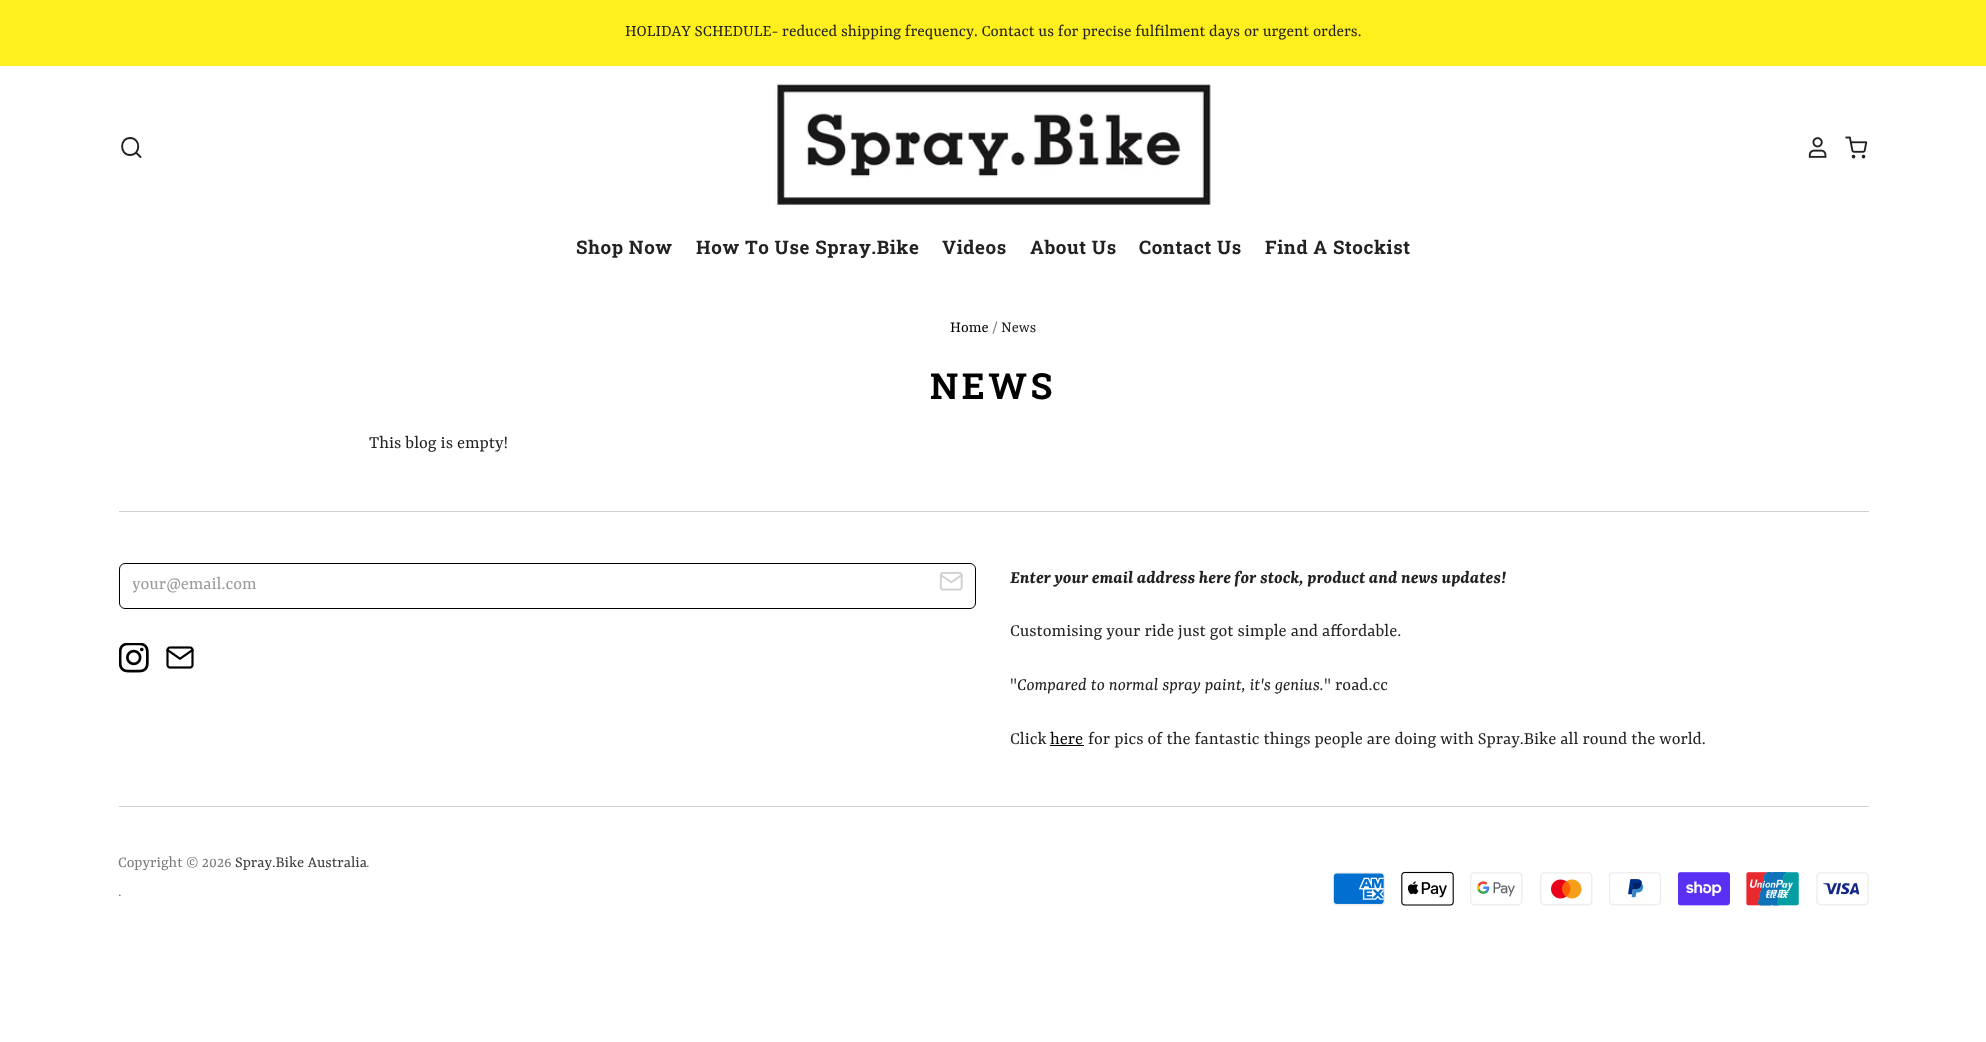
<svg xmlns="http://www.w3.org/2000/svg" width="1986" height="1042">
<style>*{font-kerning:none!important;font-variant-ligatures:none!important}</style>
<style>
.a{font:17.5px Rasa;fill:#222}
.b{font:bold 18.75px Roboto Slab;letter-spacing:0.6px;fill:#222}
.c{font:16.5px Rasa;fill:#000}
.d{font:16.5px Rasa;fill:#7a7a7a}
.e{font:16.5px Rasa;fill:#222}
.f{font:bold 36px Roboto Slab;letter-spacing:3.5px;fill:#000}
.g{font:18.75px Rasa;fill:#222}
.h{font:18.75px Rasa;fill:#999}
.i{font:italic bold 18.75px Rasa;fill:#222}
.j{font:italic 18.75px Rasa;fill:#222}
.k{font:18.75px Rasa;fill:#000}
.l{font:16.5px Rasa;fill:#383838}
</style>
<defs>
<clipPath id="clip1"><path d="M133 574h750v22H133z"/></clipPath>
</defs>
<rect width="100%" height="100%" fill="#fff"/>
<path fill="#fff01d" d="M0 0h1986v66H0z"/>
<path fill="none" stroke="#222" stroke-width="1.9" stroke-linecap="round" stroke-linejoin="round" d="M130 138c-10.5 0-10.5 17 0 17c11 0 11-17 0-17zm10.5 19l-4.5-4.5z"/>
<image href="1.png" x="775" y="83" width="436" height="122"/>
<image href="2.png" x="1808" y="137" width="19" height="21"/>
<image href="3.png" x="1845" y="136" width="23" height="23"/>
<path fill="#d0d0d0" d="M119 511h1750v1H119z"/>
<rect fill="none" stroke="#000" x="119.5" y="563.5" width="856" height="45" rx="5.5"/>
<image href="4.png" x="939" y="572" width="24" height="19"/>
<image href="5.png" x="119" y="643" width="30" height="30"/>
<image href="6.png" x="166" y="646" width="28" height="23"/>
<path fill="#000" d="M1050 745h34v1H1050z"/>
<path fill="#d0d0d0" d="M119 806h1750v1H119z"/>
<image href="7.png" x="1333" y="872" width="52" height="34"/>
<image href="8.png" x="1401" y="871" width="53" height="35"/>
<image href="9.png" x="1470" y="872" width="53" height="34"/>
<image href="10.png" x="1540" y="872" width="53" height="34"/>
<image href="11.png" x="1609" y="872" width="52" height="34"/>
<image href="12.png" x="1678" y="872" width="52" height="34"/>
<image href="13.png" x="1746" y="872" width="53" height="34"/>
<image href="14.png" x="1816" y="872" width="53" height="34"/>
<text class="a" x="625" y="36">HOLIDAY SCHEDULE- reduced shipping frequency. Contact us for precise fulfilment</text>
<text class="a" x="1209" y="36">days or urgent orders.</text>
<text class="b" x="576" y="254">Shop Now</text>
<text class="b" x="696" y="254">How To Use Spray.Bike</text>
<text class="b" x="942" y="254">Videos</text>
<text class="b" x="1030" y="254">About Us</text>
<text class="b" x="1139" y="254">Contact Us</text>
<text class="b" x="1265" y="254">Find A Stockist</text>
<text class="c" x="950" y="332">Home</text>
<text class="d" x="992" y="332">/</text>
<text class="e" x="1001" y="332">News</text>
<text class="f" x="930" y="399">NEWS</text>
<text class="g" x="369" y="448">This blog is empty!</text>
<g clip-path="url(#clip1)">
<text class="h" x="132" y="589">your@email.com</text>
</g>
<text class="i" x="1010" y="583">Enter your email address here for</text>
<text class="i" x="1260" y="583">stock, product and news updates!</text>
<text class="g" x="1010" y="636">Customising your ride just got simple and affordable.</text>
<text class="g" x="1010" y="690">"</text>
<text class="j" x="1017" y="690">Compared to normal spray paint, it's genius.</text>
<text class="g" x="1324" y="690">" road.cc</text>
<text class="g" x="1010" y="744">Click</text>
<text class="k" x="1050" y="744">here</text>
<text class="g" x="1088" y="744">for pics of the fantastic things people are doing with Spray.Bike all round the world.</text>
<text class="d" x="118" y="867">Copyright © 2026</text>
<text class="l" x="235" y="867">Spray.Bike Australia</text>
<text class="d" x="366" y="867">.</text>
<text class="d" x="118" y="896">.</text>
</svg>
